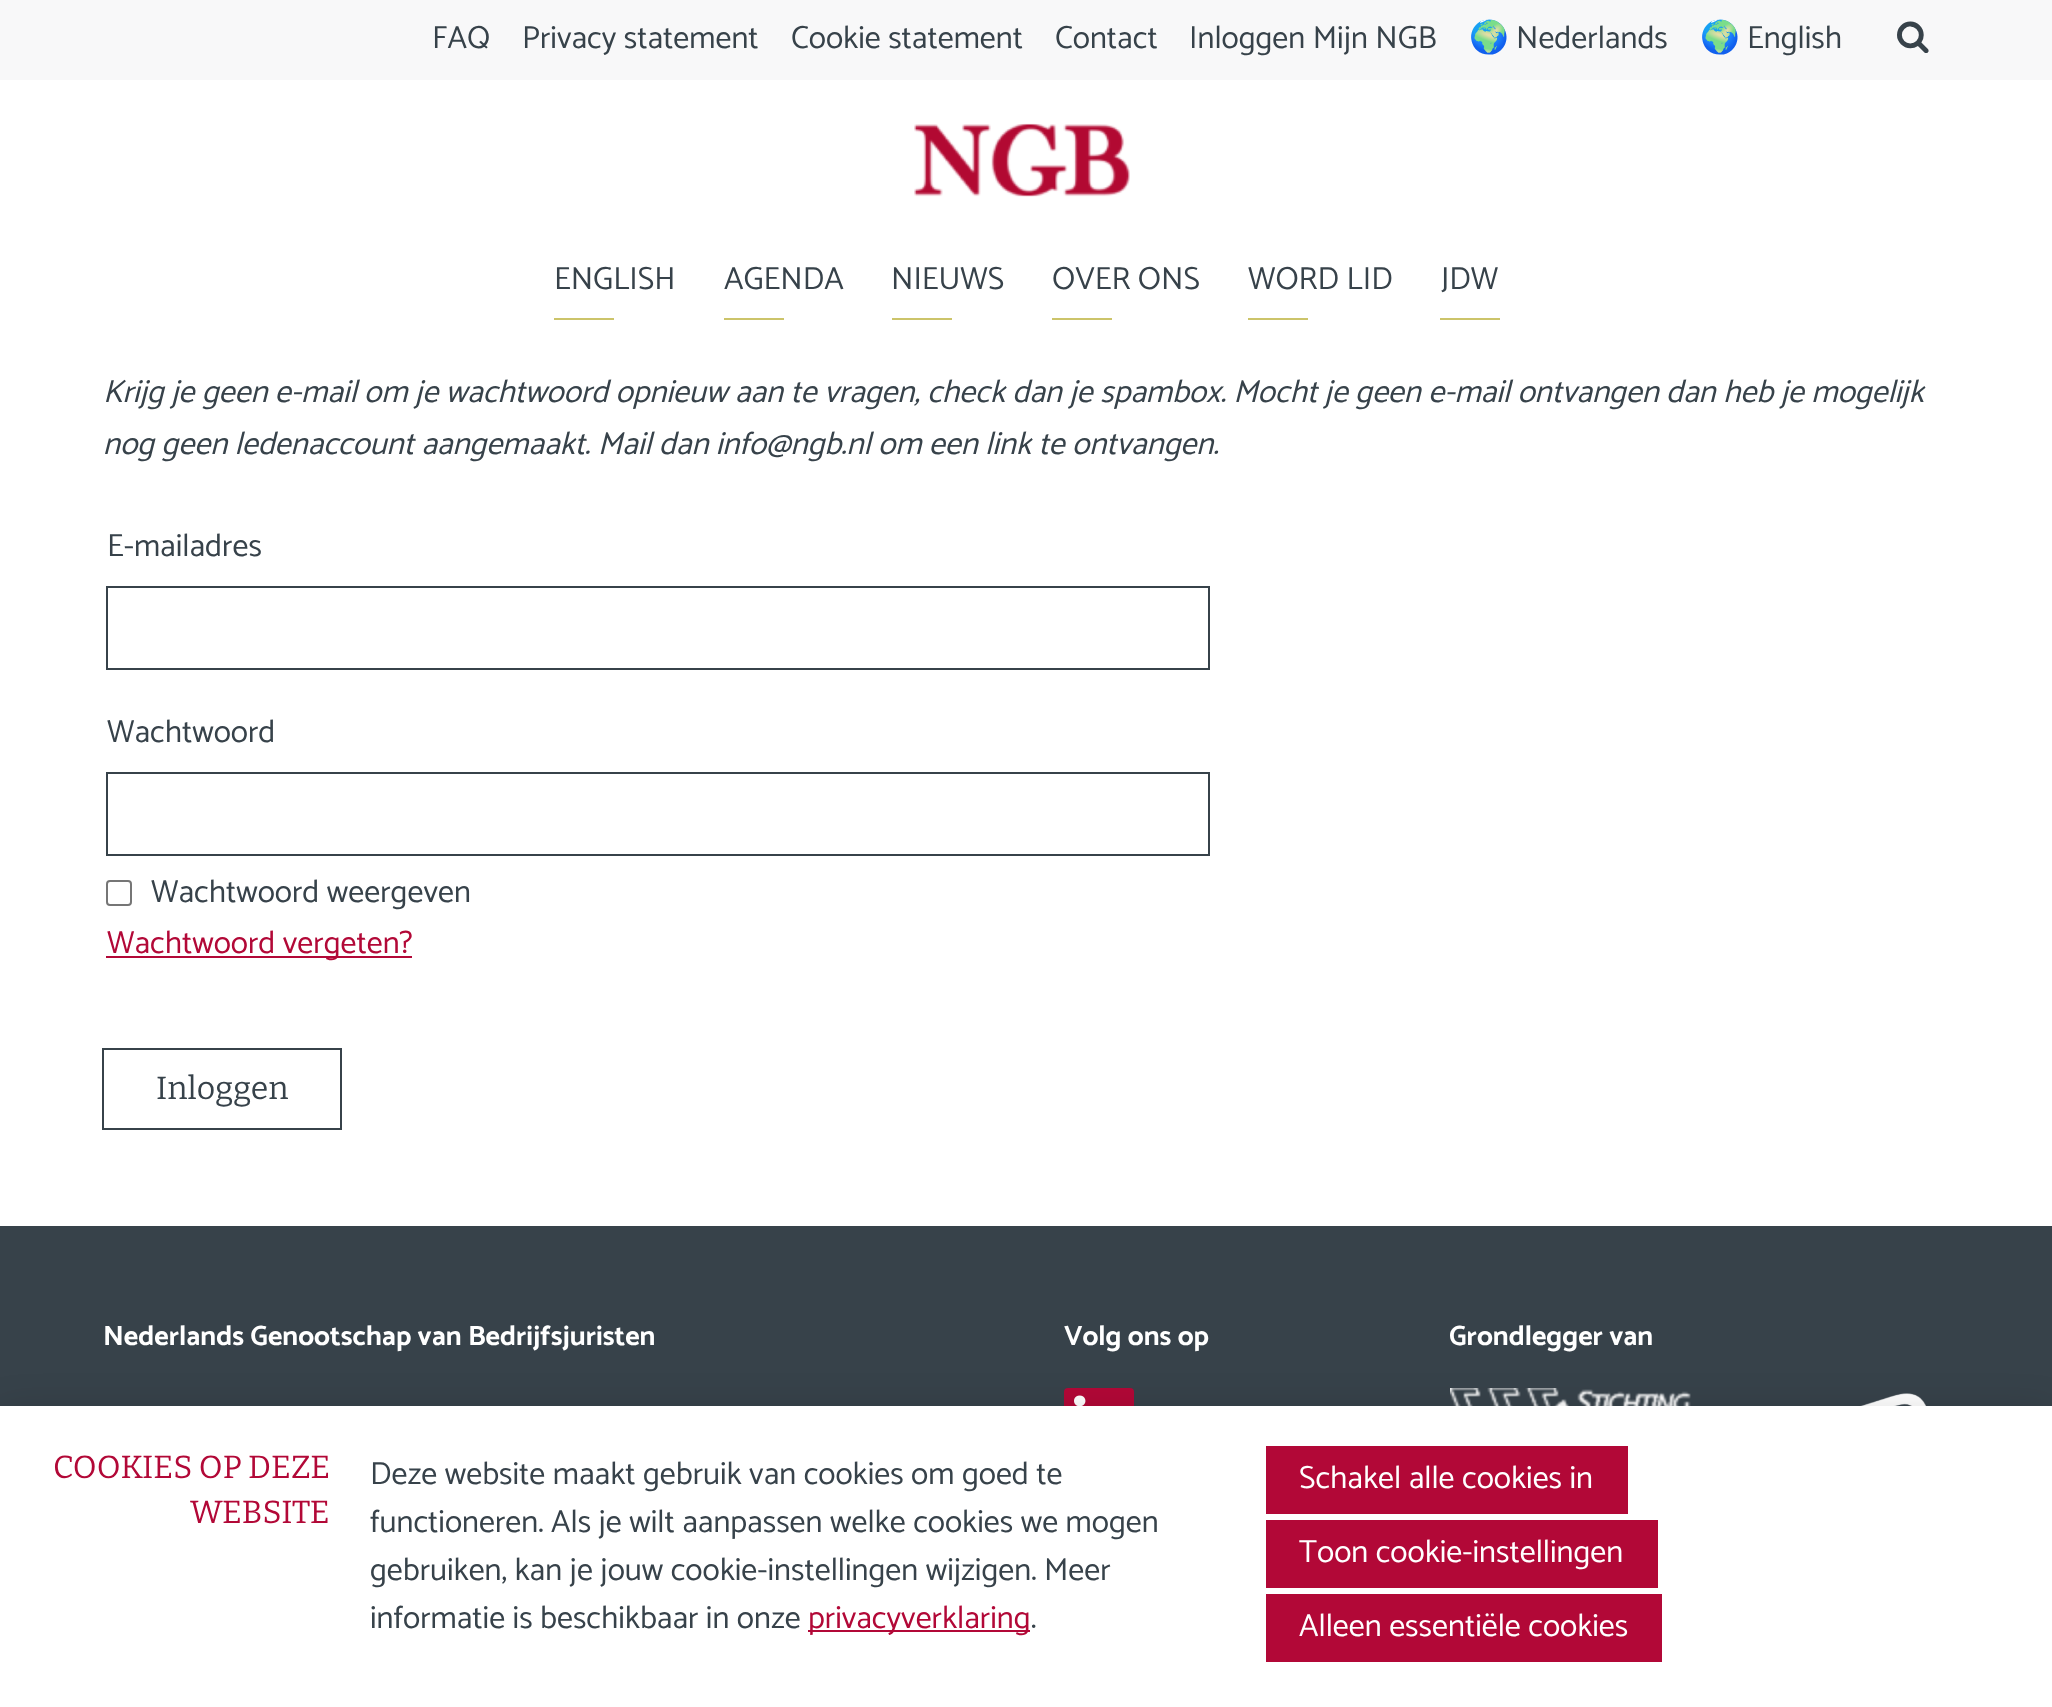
<svg xmlns="http://www.w3.org/2000/svg" width="2052" height="1707">
<style>
.a{font:32px Catamaran;fill:#37424a}
.b{font:32px Noto Color Emoji;fill:#37424a}
.c{font:34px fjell;fill:#37424a}
.d{font:italic 32px Catamaran;fill:#37424a}
.e{font:32px Catamaran;fill:#b20837}
.f{font:100 32px Bitter;fill:#37424a}
.g{font:bold 28px Catamaran;fill:#fff}
.h{font:100 32px Bitter;fill:#b20837}
.i{font:32px Catamaran;fill:#fff}
</style>
<rect width="100%" height="100%" fill="#fff"/>
<path fill="#f8f8f9" d="M0 0h2052v80H0z"/>
<image href="1.png" x="914" y="123" width="216" height="74"/>
<path fill="#ccc46a" d="M554 318h60v2H554z"/>
<path fill="#ccc46a" d="M724 318h60v2H724z"/>
<path fill="#ccc46a" d="M892 318h60v2H892z"/>
<path fill="#ccc46a" d="M1052 318h60v2H1052z"/>
<path fill="#ccc46a" d="M1248 318h60v2H1248z"/>
<path fill="#ccc46a" d="M1440 318h60v2H1440z"/>
<path fill="none" stroke="#37424a" stroke-width="2" d="M107 587h1102v82H107z"/>
<path fill="none" stroke="#37424a" stroke-width="2" d="M107 773h1102v82H107z"/>
<rect fill="none" stroke="#767676" stroke-width="2" x="107" y="881" width="24" height="24" rx="3"/>
<path fill="#b20837" d="M106 956h306v2H106z"/>
<path fill="none" stroke="#37424a" stroke-width="2" d="M103 1049h238v80H103z"/>
<path fill="#37424a" d="M0 1226h2052v180H0z"/>
<rect fill="#b20837" x="1064" y="1388" width="70" height="70" rx="4"/>
<image href="2.png" x="1074" y="1395" width="12" height="11"/>
<image href="3.png" x="1450" y="1388" width="241" height="18"/>
<image href="4.png" x="1860" y="1393" width="67" height="13"/>
<path fill="#00000033" filter="blur(20px)" d="M0 1416h2052v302H0z"/>
<path fill="#fff" d="M0 1406h2052v301H0z"/>
<path fill="#b20837" d="M808 1630h222v2H808z"/>
<path fill="#b20837" d="M1266 1446h362v68H1266z"/>
<path fill="#b20837" d="M1266 1520h392v68H1266z"/>
<path fill="#b20837" d="M1266 1594h396v68H1266z"/>
<text class="a" x="432" y="48">FAQ</text>
<text class="a" x="522" y="48">Privacy statement</text>
<text class="a" x="791" y="48">Cookie statement</text>
<text class="a" x="1055" y="48">Contact</text>
<text class="a" x="1189" y="48">Inloggen Mijn NGB</text>
<text class="b" x="1469" y="48">🌍</text>
<text class="a" x="1516" y="48">Nederlands</text>
<text class="b" x="1700" y="48">🌍</text>
<text class="a" x="1747" y="48">English</text>
<text class="c" x="1897" y="48">🔎</text>
<text class="a" x="554" y="289">ENGLISH</text>
<text class="a" x="724" y="289">AGENDA</text>
<text class="a" x="891" y="289">NIEUWS</text>
<text class="a" x="1052" y="289">OVER ONS</text>
<text class="a" x="1248" y="289">WORD LID</text>
<text class="a" x="1441" y="289">JDW</text>
<text class="d" x="103" y="402">Krijg je geen e-mail om je wachtwoord opnieuw aan te vragen, check dan je spambox. Mocht je geen e-mail ontvangen dan heb je mogelijk</text>
<text class="d" x="103" y="454">nog geen ledenaccount aangemaakt. Mail dan info@ngb.nl om een link te ontvangen.</text>
<text class="a" x="107" y="556">E-mailadres</text>
<text class="a" x="107" y="742">Wachtwoord</text>
<text class="a" x="151" y="902">Wachtwoord weergeven</text>
<text class="e" x="107" y="953">Wachtwoord vergeten?</text>
<text class="f" x="156" y="1099">Inloggen</text>
<text class="g" x="103" y="1345">Nederlands Genootschap van Bedrijfsjuristen</text>
<text class="g" x="1064" y="1345">Volg ons op</text>
<text class="g" x="1449" y="1345">Grondlegger van</text>
<text class="h" x="53" y="1478">COOKIES OP DEZE</text>
<text class="h" x="190" y="1523">WEBSITE</text>
<text class="a" x="370" y="1484">Deze website maakt gebruik van cookies om goed te</text>
<text class="a" x="370" y="1532">functioneren. Als je wilt aanpassen welke cookies we mogen</text>
<text class="a" x="370" y="1580">gebruiken, kan je jouw cookie-instellingen wijzigen. Meer</text>
<text class="a" x="370" y="1628">informatie is beschikbaar in onze</text>
<text class="e" x="808" y="1628">privacyverklaring</text>
<text class="a" x="1031" y="1628">.</text>
<text class="i" x="1299" y="1488">Schakel alle cookies in</text>
<text class="i" x="1299" y="1562">Toon cookie-instellingen</text>
<text class="i" x="1299" y="1636">Alleen essentiële cookies</text>
</svg>
